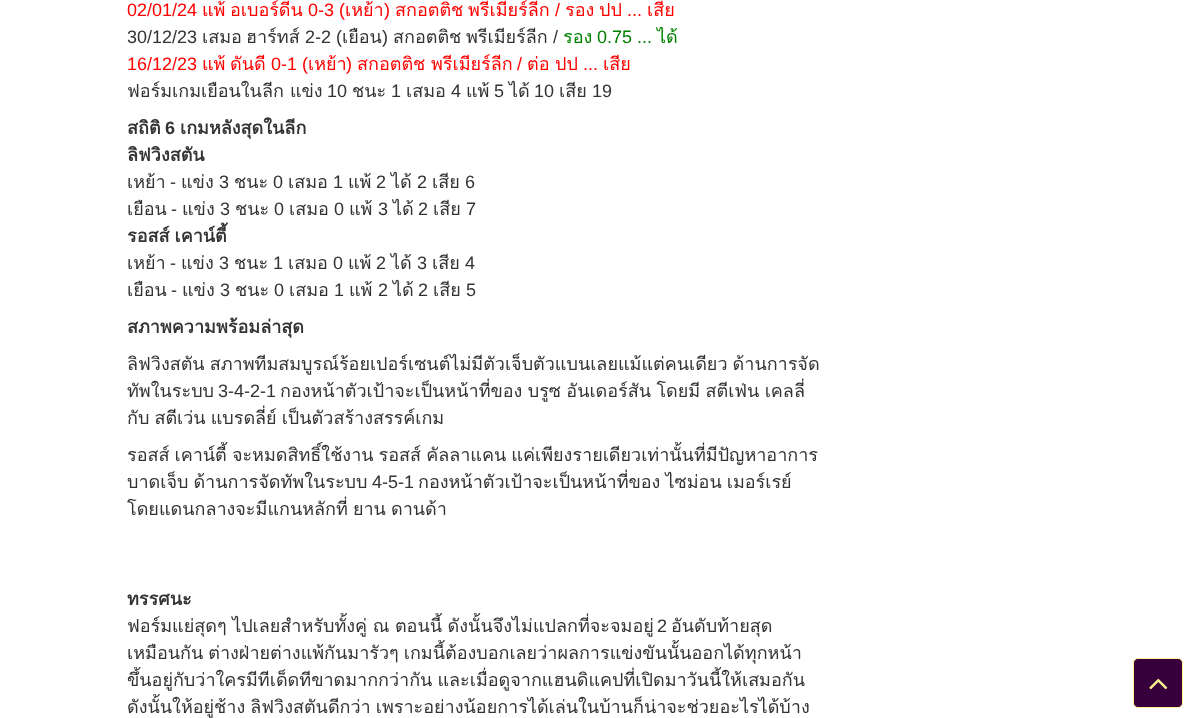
<svg xmlns="http://www.w3.org/2000/svg" width="1193" height="718">
<style>
.a{font:18px Liberation Sans;fill:#f00}
.b{font:18px Loma;fill:#f00}
.c{font:18px Liberation Sans;fill:#333}
.d{font:18px Loma;fill:#333}
.e{font:18px Loma;fill:#008000}
.f{font:18px Liberation Sans;fill:#008000}
.g{font:bold 18px Loma;fill:#333}
.h{font:bold 18px Liberation Sans;fill:#333}
</style>
<rect width="100%" height="100%" fill="#fff"/>
<rect fill="#37003c" stroke="#fff48f" x="1133.5" y="658.5" width="49" height="49" rx="4.5"/>
<image href="1.png" x="1149" y="678" width="19" height="12"/>
<text class="a" x="127" y="16">02/01/24</text>
<text class="b" x="202" y="16">แพ้</text>
<text class="b" x="230" y="16">อเบอร์ดีน</text>
<text class="a" x="308" y="16">0-3 (</text>
<text class="b" x="345" y="16">เหย้า</text>
<text class="a" x="384" y="16">)</text>
<text class="b" x="395" y="16">สกอตติช</text>
<text class="b" x="468" y="16">พรีเมียร์ลีก</text>
<text class="a" x="555" y="16">/</text>
<text class="b" x="565" y="16">รอง</text>
<text class="b" x="599" y="16">ปป</text>
<text class="a" x="627" y="16">...</text>
<text class="b" x="647" y="16">เสีย</text>
<text class="c" x="127" y="43">30/12/23</text>
<text class="d" x="202" y="43">เสมอ</text>
<text class="d" x="246" y="43">ฮาร์ทส์</text>
<text class="c" x="305" y="43">2-2 (</text>
<text class="d" x="342" y="43">เยือน</text>
<text class="c" x="382" y="43">)</text>
<text class="d" x="393" y="43">สกอตติช</text>
<text class="d" x="466" y="43">พรีเมียร์ลีก</text>
<text class="c" x="553" y="43">/</text>
<text class="e" x="563" y="43">รอง</text>
<text class="f" x="597" y="43">0.75 ...</text>
<text class="e" x="657" y="43">ได้</text>
<text class="a" x="127" y="70">16/12/23</text>
<text class="b" x="202" y="70">แพ้</text>
<text class="b" x="230" y="70">ดันดี</text>
<text class="a" x="271" y="70">0-1 (</text>
<text class="b" x="308" y="70">เหย้า</text>
<text class="a" x="346" y="70">)</text>
<text class="b" x="357" y="70">สกอตติช</text>
<text class="b" x="431" y="70">พรีเมียร์ลีก</text>
<text class="a" x="517" y="70">/</text>
<text class="b" x="527" y="70">ต่อ</text>
<text class="b" x="555" y="70">ปป</text>
<text class="a" x="583" y="70">...</text>
<text class="b" x="603" y="70">เสีย</text>
<text class="d" x="127" y="97">ฟอร์มเกมเยือนในลีก แข่ง</text>
<text class="c" x="327" y="97">10</text>
<text class="d" x="352" y="97">ชนะ</text>
<text class="c" x="391" y="97">1</text>
<text class="d" x="406" y="97">เสมอ</text>
<text class="c" x="451" y="97">4</text>
<text class="d" x="466" y="97">แพ้</text>
<text class="c" x="494" y="97">5</text>
<text class="d" x="509" y="97">ได้</text>
<text class="c" x="534" y="97">10</text>
<text class="d" x="559" y="97">เสีย</text>
<text class="c" x="592" y="97">19</text>
<text class="g" x="127" y="134">สถิติ</text>
<text class="h" x="165" y="134">6</text>
<text class="g" x="180" y="134">เกมหลังสุดในลีก</text>
<text class="g" x="127" y="161">ลิฟวิงสตัน</text>
<text class="d" x="127" y="188">เหย้า</text>
<text class="c" x="170" y="188">-</text>
<text class="d" x="181" y="188">แข่ง</text>
<text class="c" x="219" y="188">3</text>
<text class="d" x="234" y="188">ชนะ</text>
<text class="c" x="273" y="188">0</text>
<text class="d" x="288" y="188">เสมอ</text>
<text class="c" x="333" y="188">1</text>
<text class="d" x="348" y="188">แพ้</text>
<text class="c" x="376" y="188">2</text>
<text class="d" x="391" y="188">ได้</text>
<text class="c" x="417" y="188">2</text>
<text class="d" x="432" y="188">เสีย</text>
<text class="c" x="465" y="188">6</text>
<text class="d" x="127" y="215">เยือน</text>
<text class="c" x="171" y="215">-</text>
<text class="d" x="182" y="215">แข่ง</text>
<text class="c" x="220" y="215">3</text>
<text class="d" x="235" y="215">ชนะ</text>
<text class="c" x="274" y="215">0</text>
<text class="d" x="289" y="215">เสมอ</text>
<text class="c" x="334" y="215">0</text>
<text class="d" x="349" y="215">แพ้</text>
<text class="c" x="378" y="215">3</text>
<text class="d" x="393" y="215">ได้</text>
<text class="c" x="418" y="215">2</text>
<text class="d" x="433" y="215">เสีย</text>
<text class="c" x="466" y="215">7</text>
<text class="g" x="127" y="242" word-spacing="-1">รอสส์ เคาน์ตี้</text>
<text class="d" x="127" y="269">เหย้า</text>
<text class="c" x="170" y="269">-</text>
<text class="d" x="181" y="269">แข่ง</text>
<text class="c" x="219" y="269">3</text>
<text class="d" x="234" y="269">ชนะ</text>
<text class="c" x="273" y="269">1</text>
<text class="d" x="288" y="269">เสมอ</text>
<text class="c" x="333" y="269">0</text>
<text class="d" x="348" y="269">แพ้</text>
<text class="c" x="376" y="269">2</text>
<text class="d" x="391" y="269">ได้</text>
<text class="c" x="417" y="269">3</text>
<text class="d" x="432" y="269">เสีย</text>
<text class="c" x="465" y="269">4</text>
<text class="d" x="127" y="296">เยือน</text>
<text class="c" x="171" y="296">-</text>
<text class="d" x="182" y="296">แข่ง</text>
<text class="c" x="220" y="296">3</text>
<text class="d" x="235" y="296">ชนะ</text>
<text class="c" x="274" y="296">0</text>
<text class="d" x="289" y="296">เสมอ</text>
<text class="c" x="334" y="296">1</text>
<text class="d" x="349" y="296">แพ้</text>
<text class="c" x="378" y="296">2</text>
<text class="d" x="393" y="296">ได้</text>
<text class="c" x="418" y="296">2</text>
<text class="d" x="433" y="296">เสีย</text>
<text class="c" x="466" y="296">5</text>
<text class="g" x="127" y="333">สภาพความพร้อมล่าสุด</text>
<text class="d" x="127" y="370" word-spacing="-1">ลิฟวิงสตัน สภาพทีมสมบูรณ์ร้อยเปอร์เซนต์ไม่มีตัวเจ็บตัวแบนเลยแม้แต่คนเดียว ด้านการจัด</text>
<text class="d" x="127" y="397">ทัพในระบบ</text>
<text class="c" x="218" y="397">3-4-2-1</text>
<text class="d" x="280" y="397" word-spacing="-0.75">กองหน้าตัวเป้าจะเป็นหน้าที่ของ บรูซ อันเดอร์สัน โดยมี สตีเฟ่น เคลลี่</text>
<text class="d" x="127" y="424" word-spacing="-1">กับ สตีเว่น แบรดลี่ย์ เป็นตัวสร้างสรรค์เกม</text>
<text class="d" x="127" y="461" word-spacing="-1">รอสส์ เคาน์ตี้ จะหมดสิทธิ์ใช้งาน รอสส์ คัลลาแคน แค่เพียงรายเดียวเท่านั้นที่มีปัญหาอาการ</text>
<text class="d" x="127" y="488" word-spacing="-1">บาดเจ็บ ด้านการจัดทัพในระบบ</text>
<text class="c" x="372" y="488">4-5-1</text>
<text class="d" x="418" y="488" word-spacing="-1">กองหน้าตัวเป้าจะเป็นหน้าที่ของ ไซม่อน เมอร์เรย์</text>
<text class="d" x="127" y="515" word-spacing="-1">โดยแดนกลางจะมีแกนหลักที่ ยาน ดานด้า</text>
<text class="g" x="127" y="605">ทรรศนะ</text>
<text class="d" x="127" y="632" word-spacing="-0.5">ฟอร์มแย่สุดๆ ไปเลยสำหรับทั้งคู่ ณ ตอนนี้ ดังนั้นจึงไม่แปลกที่จะจมอยู่</text>
<text class="c" x="657" y="632">2</text>
<text class="d" x="671" y="632">อันดับท้ายสุด</text>
<text class="d" x="127" y="659" word-spacing="-1">เหมือนกัน ต่างฝ่ายต่างแพ้กันมารัวๆ เกมนี้ต้องบอกเลยว่าผลการแข่งขันนั้นออกได้ทุกหน้า</text>
<text class="d" x="127" y="686" word-spacing="-1">ขึ้นอยู่กับว่าใครมีทีเด็ดทีขาดมากกว่ากัน และเมื่อดูจากแฮนดิแคปที่เปิดมาวันนี้ให้เสมอกัน</text>
<text class="d" x="127" y="713" word-spacing="-1">ดังนั้นให้อยู่ช้าง ลิฟวิงสตันดีกว่า เพราะอย่างน้อยการได้เล่นในบ้านก็น่าจะช่วยอะไรได้บ้าง</text>
</svg>
